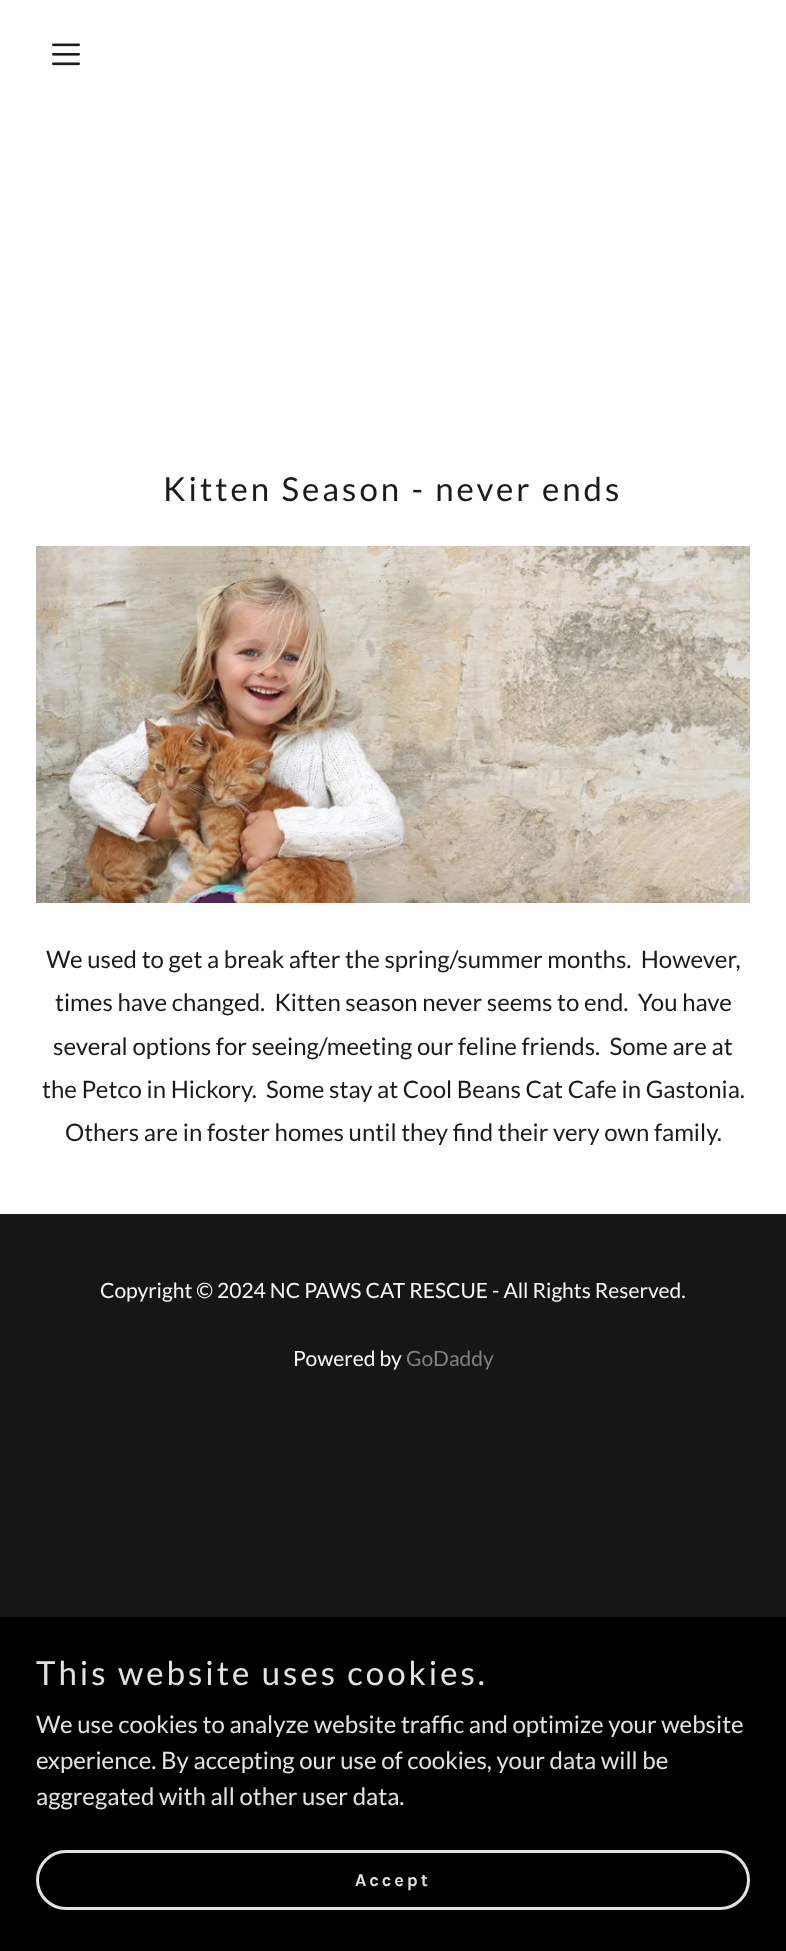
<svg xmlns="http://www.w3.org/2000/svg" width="786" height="1951">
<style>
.a{font:33px Lato;letter-spacing:3px;fill:#1b1b1b}
.b{font:24px Lato;fill:#1b1b1b}
.c{font:21px Lato;fill:#f7f7f7}
.d{font:21px Lato;fill:#7f8080}
.e{font:33px Lato;letter-spacing:3px;fill:#e2e2e2}
.f{font:24px Lato;fill:#e2e2e2}
.g{font:bold 18px Karla;letter-spacing:3px;fill:#e2e2e2}
</style>
<rect width="100%" height="100%" fill="#161616"/>
<path fill="#fff" d="M0 0h786v1214H0z"/>
<image href="1.png" x="52" y="43" width="28" height="23"/>
<image href="2.png" x="36" y="546" width="714" height="357"/>
<path fill="#000" d="M0 1617h786v334H0z"/>
<rect fill="none" stroke="#e2e2e2" stroke-width="3" x="37.5" y="1851.5" width="711" height="57" rx="28.5"/>
<text class="a" x="163" y="501">Kitten Season - never ends</text>
<text class="b" xml:space="preserve" x="46" y="968">We used to get a break after the spring/summer months.  However,</text>
<text class="b" xml:space="preserve" x="55" y="1011">times have changed.  Kitten season never seems to end.  You have</text>
<text class="b" xml:space="preserve" x="53" y="1055">several options for seeing/meeting our feline friends.  Some are at</text>
<text class="b" xml:space="preserve" x="42" y="1098">the Petco in Hickory.  Some stay at Cool Beans Cat Cafe in Gastonia.</text>
<text class="b" x="65" y="1141">Others are in foster homes until they find their very own family.</text>
<text class="c" x="100" y="1298">Copyright © 2024 NC PAWS CAT RESCUE - All Rights Reserved.</text>
<text class="c" x="293" y="1366">Powered by</text>
<text class="d" x="406" y="1366">GoDaddy</text>
<text class="e" x="36" y="1685">This website uses cookies.</text>
<text class="f" x="36" y="1733">We use cookies to analyze website traffic and optimize your website</text>
<text class="f" x="36" y="1769">experience. By accepting our use of cookies, your data will be</text>
<text class="f" x="36" y="1805">aggregated with all other user data.</text>
<text class="g" x="355" y="1886">Accept</text>
</svg>
